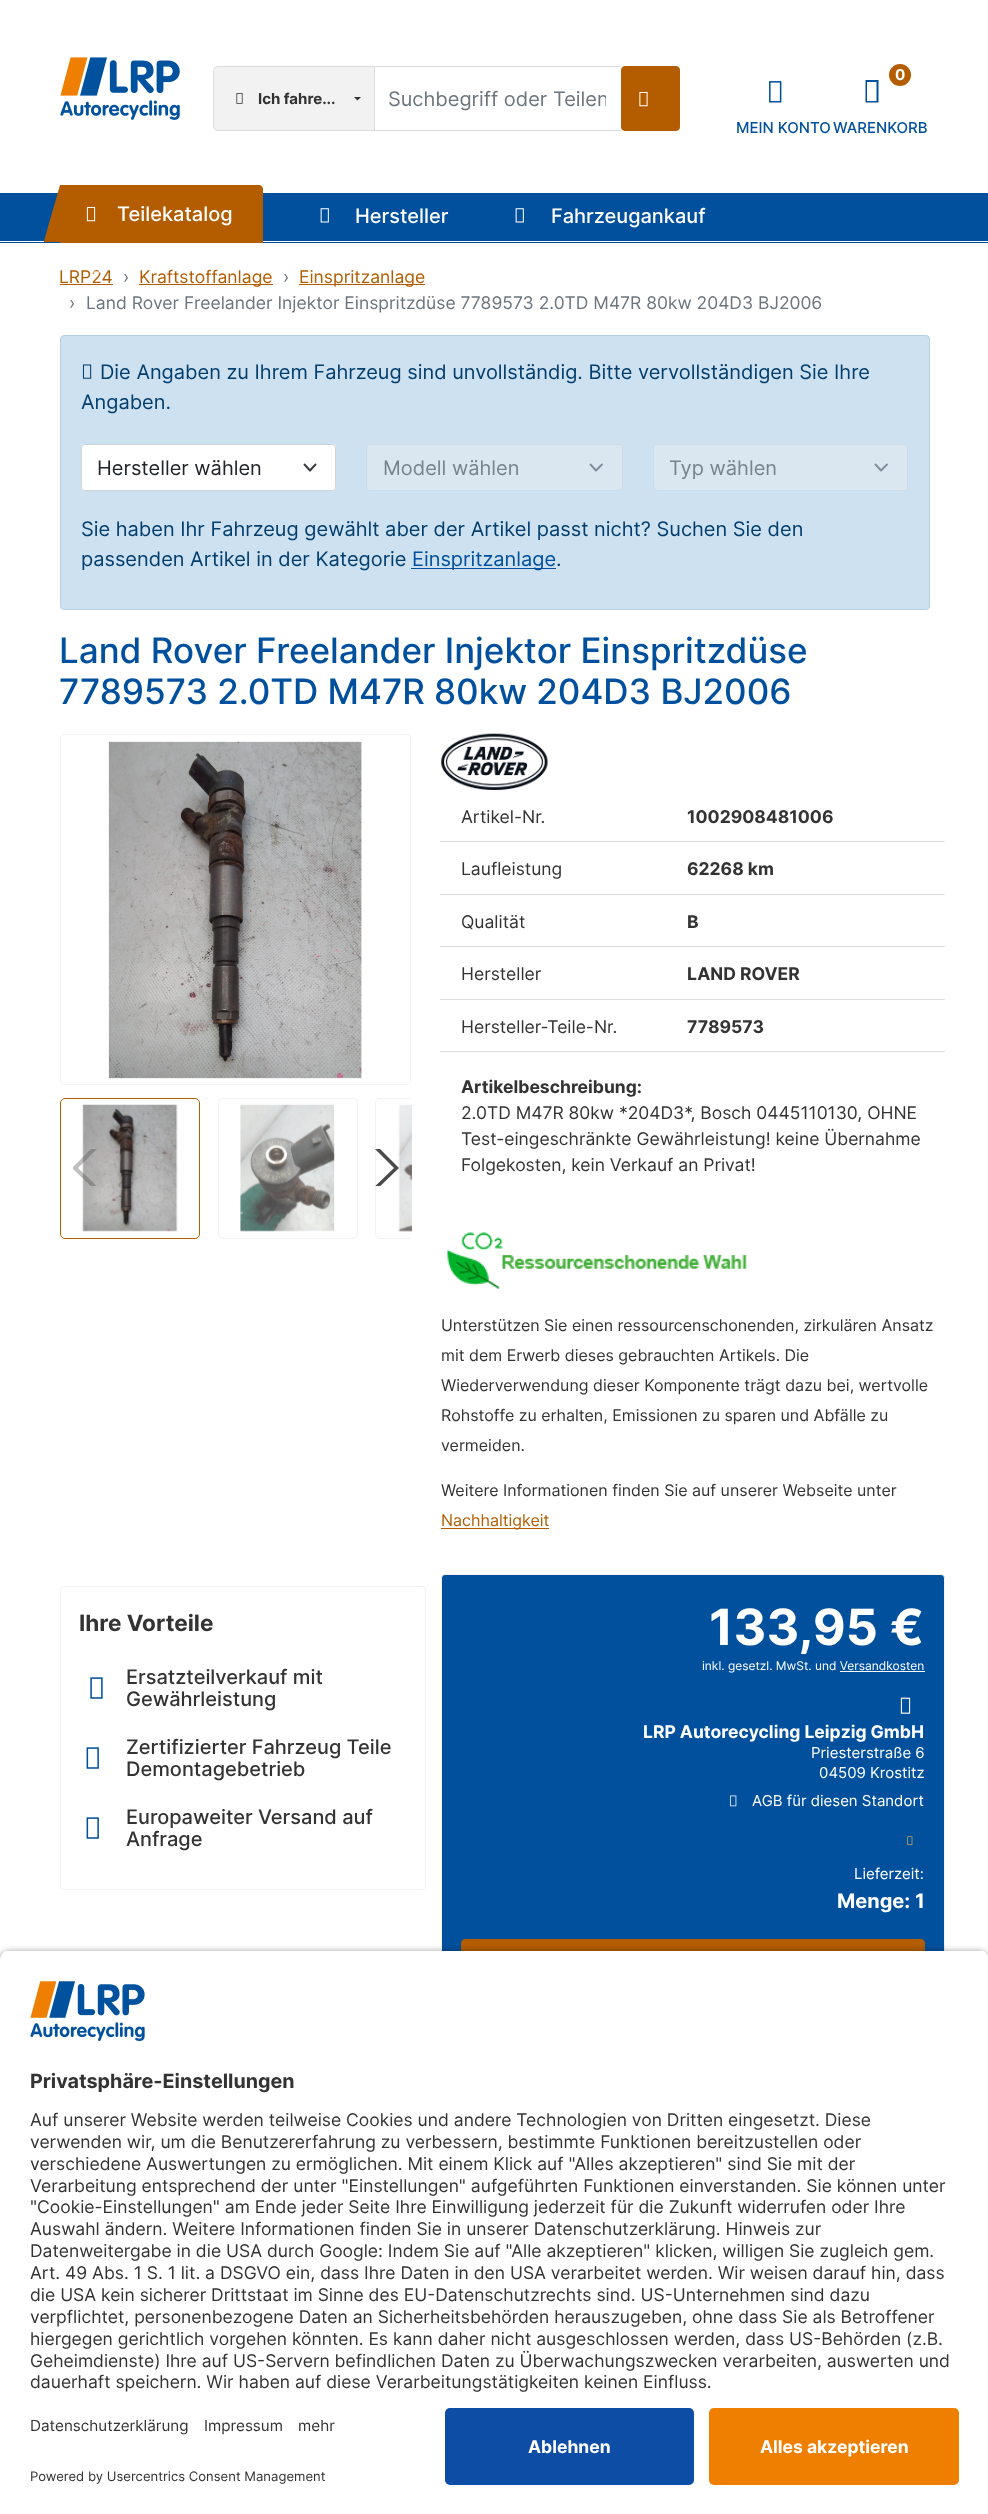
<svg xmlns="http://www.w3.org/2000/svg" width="988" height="2514">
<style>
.a{font:bold 15px Inter;fill:#333}
.b{font:20px Inter;fill:#6c757d}
.c{font:500 15px Inter;fill:#00509d}
.d{font:bold 15px Inter;fill:#fff}
.e{font:500 20px Inter;fill:#fff}
.f{font:17.5px Inter;fill:#b35d00}
.g{font:17.5px Inter;fill:#6c757d}
.h{font:20px Inter;fill:#023e6e}
.i{font:20px Inter;fill:#212529}
.j{font:20px Inter;fill:#77838d}
.k{font:20px Inter;fill:#00509d}
.l{font:500 35px Inter;fill:#00509d}
.m{font:17.5px Inter;fill:#333}
.n{font:bold 17.5px Inter;fill:#333}
.o{font:16px Inter;fill:#333}
.p{font:16px Inter;fill:#b35d00}
.q{font:bold 22.5px Inter;fill:#333}
.r{font:500 20px Inter;fill:#333}
.s{font:bold 50px Inter;fill:#fff}
.t{font:12px Inter;fill:#fff}
.u{font:bold 17.5px Inter;fill:#fff}
.v{font:15px Inter;fill:#fff}
.w{font:bold 20px Inter;fill:#fff}
.x{font:bold 19.75px Inter;fill:#333}
.y{font:15.25px Inter;fill:#333}
.z{font:13.1px Inter;fill:#333}
</style>
<defs>
<clipPath id="clip1"><path d="M73 1149h33v37H73z"/></clipPath>
<clipPath id="clip2"><path d="M10 1950h969c5.5 0 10 4.5 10 10v438h-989v-438c0-5.5 4.5-10 10-10z"/></clipPath>
<clipPath id="clip3"><path d="M389 86h217v25H389z"/></clipPath>
<clipPath id="clip4"><path d="M60 1085h351v154H60z"/></clipPath>
<clipPath id="clip5"><path d="M365 1149h34v37H365z"/></clipPath>
</defs>
<rect width="100%" height="100%" fill="#fff"/>
<image href="1.png" x="60" y="57" width="120" height="63"/>
<path fill="#ddd" d="M373 66h248v1H373z"/>
<path fill="#ddd" d="M373 130h248v1H373z"/>
<path fill="#f2f2f2" stroke="#ddd" d="M218 66.5h156.5v64h-156.5c-2.5 0-4.5-2-4.5-4.5v-55c0-2.5 2-4.5 4.5-4.5z"/>
<image href="2.png" x="236" y="93" width="7" height="11"/>
<path fill="#333" d="M354 97h7l-3.5 3.5z"/>
<rect fill="#b35d00" stroke="#b35d00" x="621.5" y="66.5" width="58" height="64" rx="3.5"/>
<image href="3.png" x="639" y="91" width="9" height="16"/>
<image href="4.png" x="769" y="81" width="13" height="22"/>
<circle fill="#b35d00" cx="900" cy="75" r="11"/>
<path fill="#00509d" d="M865.5 102.5v-22.5h13v22.5zm1.5-1.5h9.5v-19h-9.5z"/>
<path fill="#00509d" d="M0 193h988v50H0z"/>
<path fill="#fff" d="M0 241h988v1H0z"/>
<path fill="#b35d00" d="M60 185h199c2 0 4 2 4 4v54h-203z"/>
<path fill="#b35d00" d="M60 185v57h-16v-1z"/>
<image href="5.png" x="86" y="206" width="10" height="16"/>
<image href="6.png" x="320" y="208" width="9" height="15"/>
<image href="6.png" x="515" y="208" width="9" height="15"/>
<path fill="#b35d00" d="M60 284h53v1H60z"/>
<path fill="#b35d00" d="M139 284h134v1H139z"/>
<path fill="#b35d00" d="M299 284h126v1H299z"/>
<rect fill="#cde1f1" stroke="#b3d2ea" x="60.5" y="335.5" width="869" height="274" rx="3.5"/>
<image href="8.png" x="82" y="364" width="10" height="15"/>
<rect fill="#fff" x="81" y="444" width="255" height="47" rx="4"/>
<path fill="none" stroke="#343a40" stroke-width="1.9" stroke-linecap="round" stroke-linejoin="round" d="M304.5 464.5l5.5 6l5.5-6"/>
<rect fill="none" stroke="#ced4da" x="81.5" y="444.5" width="254" height="46" rx="3.5"/>
<rect fill="#dbe7f0" x="366" y="444" width="257" height="47" rx="4"/>
<path fill="none" stroke="#818e99" stroke-width="1.9" stroke-linecap="round" stroke-linejoin="round" d="M590.5 464.5l5.5 6l6-6"/>
<rect fill="none" stroke="#cedbe6" x="366.5" y="444.5" width="256" height="46" rx="3.5"/>
<rect fill="#dbe7f0" x="653" y="444" width="255" height="47" rx="4"/>
<path fill="none" stroke="#818e99" stroke-width="1.9" stroke-linecap="round" stroke-linejoin="round" d="M875.5 464.5l5.5 6l6-6"/>
<rect fill="none" stroke="#cedbe6" x="653.5" y="444.5" width="254" height="46" rx="3.5"/>
<path fill="#00509d" d="M411 568h145v1H411z"/>
<rect fill="none" stroke="#f2f2f2" x="60.5" y="734.5" width="350" height="350" rx="4.5"/>
<image href="9.png" x="108" y="741" width="254" height="338"/>
<rect fill="none" stroke="#b35d00" x="60.5" y="1098.5" width="139" height="140" rx="4.5"/>
<image href="10.png" x="82" y="1104" width="96" height="128"/>
<rect fill="none" stroke="#f2f2f2" x="218.5" y="1098.5" width="139" height="140" rx="4.5"/>
<image href="11.png" x="240" y="1104" width="95" height="128"/>
<g clip-path="url(#clip1)">
<path fill="#4b4b4b59" d="M72 1168l28-28l3 3l-25 25l25 24l-3 3z"/>
</g>
<image href="13.png" x="441" y="733" width="107" height="57"/>
<path fill="#ddd" d="M440 841h505v1H440z"/>
<path fill="#ddd" d="M440 894h505v1H440z"/>
<path fill="#ddd" d="M440 946h505v1H440z"/>
<path fill="#ddd" d="M440 999h505v1H440z"/>
<path fill="#ddd" d="M440 1051h505v1H440z"/>
<image href="14.png" x="447" y="1232" width="300" height="57"/>
<path fill="#b35d00" d="M441 1528h108v1H441z"/>
<rect fill="none" stroke="#f2f2f2" x="60.5" y="1586.5" width="365" height="303" rx="3.5"/>
<image href="15.png" x="90" y="1677" width="13" height="22"/>
<image href="16.png" x="86" y="1747" width="13" height="22"/>
<image href="16.png" x="86" y="1817" width="13" height="22"/>
<rect fill="#00509d" stroke="#f2f2f2" x="441.5" y="1574.5" width="503" height="440" rx="3.5"/>
<path fill="#fff" d="M840 1671h85v1H840z"/>
<image href="17.png" x="900" y="1697" width="11" height="17"/>
<image href="18.png" x="730" y="1795" width="7" height="12"/>
<image href="19.png" x="907" y="1836" width="6" height="9"/>
<rect fill="#b35d00" stroke="#b35d00" x="461.5" y="1939.5" width="463" height="46" rx="3.5"/>
<rect fill="#000000cc" filter="blur(4.5px)" y="1954" width="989" height="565" rx="10"/>
<g clip-path="url(#clip2)">
<path fill="#fff" d="M0 1951h988v447H0z"/>
</g>
<image href="20.png" x="30" y="1981" width="115" height="60"/>
<path fill="#fff" d="M0 2398h988v116H0z"/>
<rect fill="#0e4da5" x="445" y="2408" width="249" height="77" rx="5"/>
<rect fill="#ee7f00" x="709" y="2408" width="250" height="77" rx="5"/>
<text class="a" x="258" y="104">Ich fahre...</text>
<g clip-path="url(#clip3)">
<text class="b" x="388" y="106">Suchbegriff oder Teilen</text>
</g>
<text class="c" x="736" y="133">MEIN KONTO</text>
<text class="d" x="895" y="80">0</text>
<text class="c" x="833" y="133">WARENKORB</text>
<text class="e" x="117" y="221">Teilekatalog</text>
<text class="e" x="355" y="223">Hersteller</text>
<text class="e" x="551" y="223">Fahrzeugankauf</text>
<text class="f" x="59" y="283">LRP24</text>
<image href="7.png" x="93" y="270" width="8" height="3"/>
<text class="g" x="123" y="283">›</text>
<text class="f" x="139" y="283">Kraftstoffanlage</text>
<text class="g" x="283" y="283">›</text>
<text class="f" x="299" y="283">Einspritzanlage</text>
<text class="g" x="69" y="309">›</text>
<text class="g" x="86" y="309">Land Rover Freelander Injektor Einspritzdüse 7789573 2.0TD M47R 80kw 204D3 BJ2006</text>
<text class="h" x="100" y="379">Die Angaben zu Ihrem Fahrzeug sind unvollständig. Bitte vervollständigen Sie Ihre</text>
<text class="h" x="81" y="409">Angaben.</text>
<text class="i" x="97" y="475">Hersteller wählen</text>
<text class="j" x="383" y="475">Modell wählen</text>
<text class="j" x="669" y="475">Typ wählen</text>
<text class="h" x="81" y="536">Sie haben Ihr Fahrzeug gewählt aber der Artikel passt nicht? Suchen Sie den</text>
<text class="h" x="81" y="566">passenden Artikel in der Kategorie</text>
<text class="k" x="412" y="566">Einspritzanlage</text>
<text class="h" x="556" y="566">.</text>
<text class="l" x="59" y="663">Land Rover Freelander Injektor Einspritzdüse</text>
<text class="l" x="59" y="704">7789573 2.0TD M47R 80kw 204D3 BJ2006</text>
<text class="m" x="461" y="823">Artikel-Nr.</text>
<text class="n" x="687" y="823">1002908481006</text>
<text class="m" x="461" y="875">Laufleistung</text>
<text class="n" x="687" y="875">62268 km</text>
<text class="m" x="461" y="928">Qualität</text>
<text class="n" x="687" y="928">B</text>
<text class="m" x="461" y="980">Hersteller</text>
<text class="n" x="687" y="980">LAND ROVER</text>
<text class="m" x="461" y="1033">Hersteller-Teile-Nr.</text>
<text class="n" x="687" y="1033">7789573</text>
<text class="n" x="461" y="1093">Artikelbeschreibung:</text>
<text class="m" x="461" y="1119">2.0TD M47R 80kw *204D3*, Bosch 0445110130, OHNE</text>
<text class="m" x="461" y="1145">Test-eingeschränkte Gewährleistung! keine Übernahme</text>
<text class="m" x="461" y="1171">Folgekosten, kein Verkauf an Privat!</text>
<g clip-path="url(#clip4)">
<rect fill="none" stroke="#f2f2f2" x="375.5" y="1098.5" width="140" height="140" rx="4.5"/>
</g>
<image href="12.png" x="398" y="1104" width="14" height="128"/>
<g clip-path="url(#clip5)">
<path fill="#4b4b4b" d="M399 1168l-28 27l-2-3l25-24l-25-25l2-3z"/>
</g>
<text class="o" x="441" y="1331">Unterstützen Sie einen ressourcenschonenden, zirkulären Ansatz</text>
<text class="o" x="441" y="1361">mit dem Erwerb dieses gebrauchten Artikels. Die</text>
<text class="o" x="441" y="1391">Wiederverwendung dieser Komponente trägt dazu bei, wertvolle</text>
<text class="o" x="441" y="1421">Rohstoffe zu erhalten, Emissionen zu sparen und Abfälle zu</text>
<text class="o" x="441" y="1451">vermeiden.</text>
<text class="o" x="441" y="1496">Weitere Informationen finden Sie auf unserer Webseite unter</text>
<text class="p" x="441" y="1526">Nachhaltigkeit</text>
<text class="q" x="79" y="1631">Ihre Vorteile</text>
<text class="r" x="126" y="1684">Ersatzteilverkauf mit</text>
<text class="r" x="126" y="1706">Gewährleistung</text>
<text class="r" x="126" y="1754">Zertifizierter Fahrzeug Teile</text>
<text class="r" x="126" y="1776">Demontagebetrieb</text>
<text class="r" x="126" y="1824">Europaweiter Versand auf</text>
<text class="r" x="126" y="1846">Anfrage</text>
<text class="s" x="709" y="1645">133,95 €</text>
<text class="t" x="702" y="1670">inkl. gesetzl. MwSt. und Versandkosten</text>
<text class="u" x="643" y="1738">LRP Autorecycling Leipzig GmbH</text>
<text class="v" x="811" y="1758">Priesterstraße 6</text>
<text class="v" x="819" y="1778">04509 Krostitz</text>
<text class="v" x="752" y="1806">AGB für diesen Standort</text>
<text class="v" x="854" y="1879">Lieferzeit:</text>
<text class="w" x="837" y="1908">Menge: 1</text>
<text class="x" x="30" y="2088">Privatsphäre-Einstellungen</text>
<text class="m" x="30" y="2126">Auf unserer Website werden teilweise Cookies und andere Technologien von Dritten eingesetzt. Diese</text>
<text class="m" x="30" y="2148">verwenden wir, um die Benutzererfahrung zu verbessern, bestimmte Funktionen bereitzustellen oder</text>
<text class="m" x="30" y="2170">verschiedene Auswertungen zu ermöglichen. Mit einem Klick auf "Alles akzeptieren" sind Sie mit der</text>
<text class="m" x="30" y="2192">Verarbeitung entsprechend der unter "Einstellungen" aufgeführten Funktionen einverstanden. Sie können unter</text>
<text class="m" x="30" y="2213">"Cookie-Einstellungen" am Ende jeder Seite Ihre Einwilligung jederzeit für die Zukunft widerrufen oder Ihre</text>
<text class="m" x="30" y="2235">Auswahl ändern. Weitere Informationen finden Sie in unserer Datenschutzerklärung. Hinweis zur</text>
<text class="m" x="30" y="2257">Datenweitergabe in die USA durch Google: Indem Sie auf "Alle akzeptieren" klicken, willigen Sie zugleich gem.</text>
<text class="m" x="30" y="2279">Art. 49 Abs. 1 S. 1 lit. a DSGVO ein, dass Ihre Daten in den USA verarbeitet werden. Wir weisen darauf hin, dass</text>
<text class="m" x="30" y="2301">die USA kein sicherer Drittstaat im Sinne des EU-Datenschutzrechts sind. US-Unternehmen sind dazu</text>
<text class="m" x="30" y="2323">verpflichtet, personenbezogene Daten an Sicherheitsbehörden herauszugeben, ohne dass Sie als Betroffener</text>
<text class="m" x="30" y="2345">hiergegen gerichtlich vorgehen könnten. Es kann daher nicht ausgeschlossen werden, dass US-Behörden (z.B.</text>
<text class="m" x="30" y="2367">Geheimdienste) Ihre auf US-Servern befindlichen Daten zu Überwachungszwecken verarbeiten, auswerten und</text>
<text class="m" x="30" y="2388">dauerhaft speichern. Wir haben auf diese Verarbeitungstätigkeiten keinen Einfluss.</text>
<text class="y" x="30" y="2431">Datenschutzerklärung</text>
<text class="y" x="204" y="2431">Impressum</text>
<text class="y" x="298" y="2431">mehr</text>
<text class="z" x="30" y="2481">Powered by Usercentrics Consent Management</text>
<text class="u" x="528" y="2453">Ablehnen</text>
<text class="u" x="760" y="2453">Alles akzeptieren</text>
</svg>
